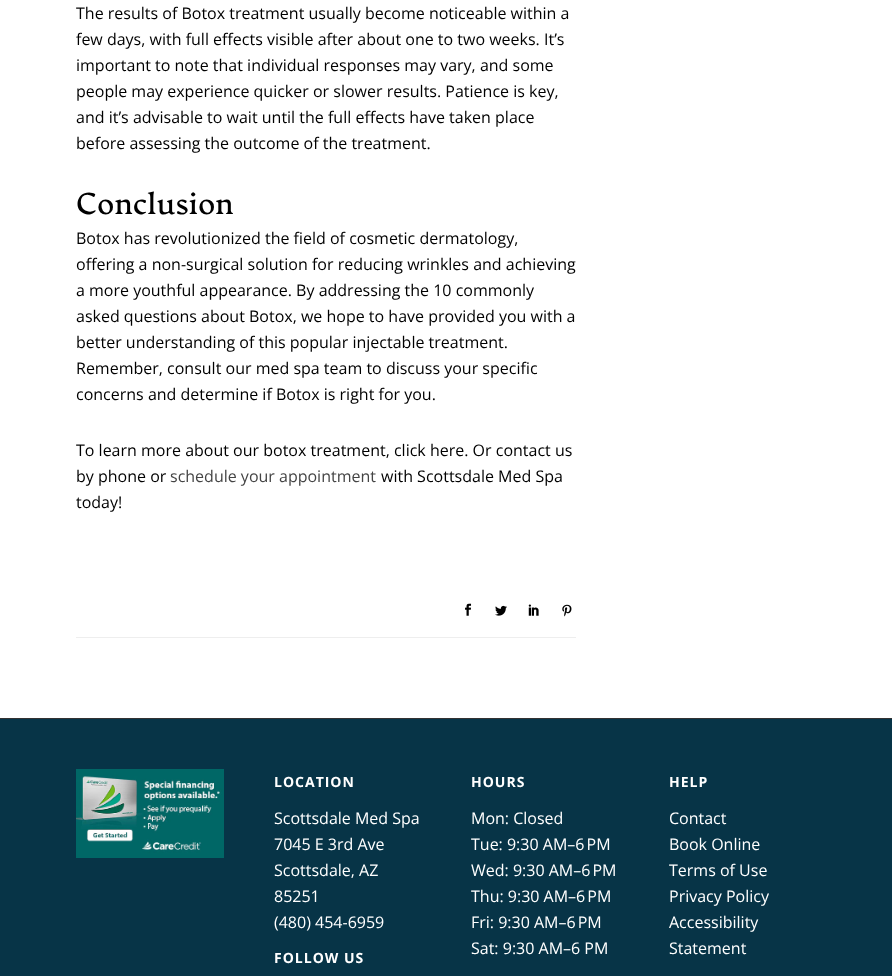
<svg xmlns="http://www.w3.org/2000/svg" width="892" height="976">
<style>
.a{font:16px Open Sans;fill:#000}
.b{font:600 30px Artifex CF;fill:#000}
.c{font:16px Open Sans;fill:#444}
.d{font:bold 14px Open Sans;letter-spacing:1px;fill:#fff}
.e{font:16px Open Sans;fill:#fff}
</style>
<rect width="100%" height="100%" fill="#fff"/>
<path fill="#eee" d="M76 637h500v1H76z"/>
<image href="1.png" x="465" y="603" width="7" height="13"/>
<image href="2.png" x="495" y="605" width="12" height="11"/>
<image href="3.png" x="528" y="604" width="11" height="12"/>
<image href="4.png" x="562" y="604" width="10" height="13"/>
<path fill="#073447" d="M0 719h892v257H0z"/>
<path fill="#323232" d="M0 718h892v1H0z"/>
<image href="5.png" x="76" y="769" width="148" height="89"/>
<text class="a" x="76" y="19">The results of Botox treatment usually become noticeable within a</text>
<text class="a" x="76" y="45">few days, with full effects visible after about one to two weeks. It’s</text>
<text class="a" x="76" y="71">important to note that individual responses may vary, and some</text>
<text class="a" x="76" y="97">people may experience quicker or slower results. Patience is key,</text>
<text class="a" x="76" y="123">and it’s advisable to wait until the full effects have taken place</text>
<text class="a" x="76" y="149">before assessing the outcome of the treatment.</text>
<text class="b" x="76" y="214">Conclusion</text>
<text class="a" x="76" y="244">Botox has revolutionized the field of cosmetic dermatology,</text>
<text class="a" x="76" y="270">offering a non-surgical solution for reducing wrinkles and achieving</text>
<text class="a" x="76" y="296">a more youthful appearance. By addressing the 10 commonly</text>
<text class="a" x="76" y="322">asked questions about Botox, we hope to have provided you with a</text>
<text class="a" x="76" y="348">better understanding of this popular injectable treatment.</text>
<text class="a" x="76" y="374">Remember, consult our med spa team to discuss your specific</text>
<text class="a" x="76" y="400">concerns and determine if Botox is right for you.</text>
<text class="a" x="76" y="456">To learn more about our botox treatment, click here. Or contact us</text>
<text class="a" x="76" y="482">by phone or</text>
<text class="c" x="170" y="482">schedule your appointment</text>
<text class="a" x="381" y="482">with Scottsdale Med Spa</text>
<text class="a" x="76" y="508">today!</text>
<text class="d" x="274" y="787">LOCATION</text>
<text class="e" x="274" y="824">Scottsdale Med Spa</text>
<text class="e" x="274" y="850">7045 E 3rd Ave</text>
<text class="e" x="274" y="876">Scottsdale, AZ</text>
<text class="e" x="274" y="902">85251</text>
<text class="e" x="274" y="928">(480) 454-6959</text>
<text class="d" x="274" y="963">FOLLOW US</text>
<text class="d" x="471" y="787">HOURS</text>
<text class="e" x="471" y="824">Mon: Closed</text>
<text class="e" x="471" y="850">Tue: 9:30 AM–6 PM</text>
<text class="e" x="471" y="876">Wed: 9:30 AM–6 PM</text>
<text class="e" x="471" y="902">Thu: 9:30 AM–6 PM</text>
<text class="e" x="471" y="928">Fri: 9:30 AM–6 PM</text>
<text class="e" x="471" y="954">Sat: 9:30 AM–6 PM</text>
<text class="d" x="669" y="787">HELP</text>
<text class="e" x="669" y="824">Contact</text>
<text class="e" x="669" y="850">Book Online</text>
<text class="e" x="669" y="876">Terms of Use</text>
<text class="e" x="669" y="902">Privacy Policy</text>
<text class="e" x="669" y="928">Accessibility</text>
<text class="e" x="669" y="954">Statement</text>
</svg>
